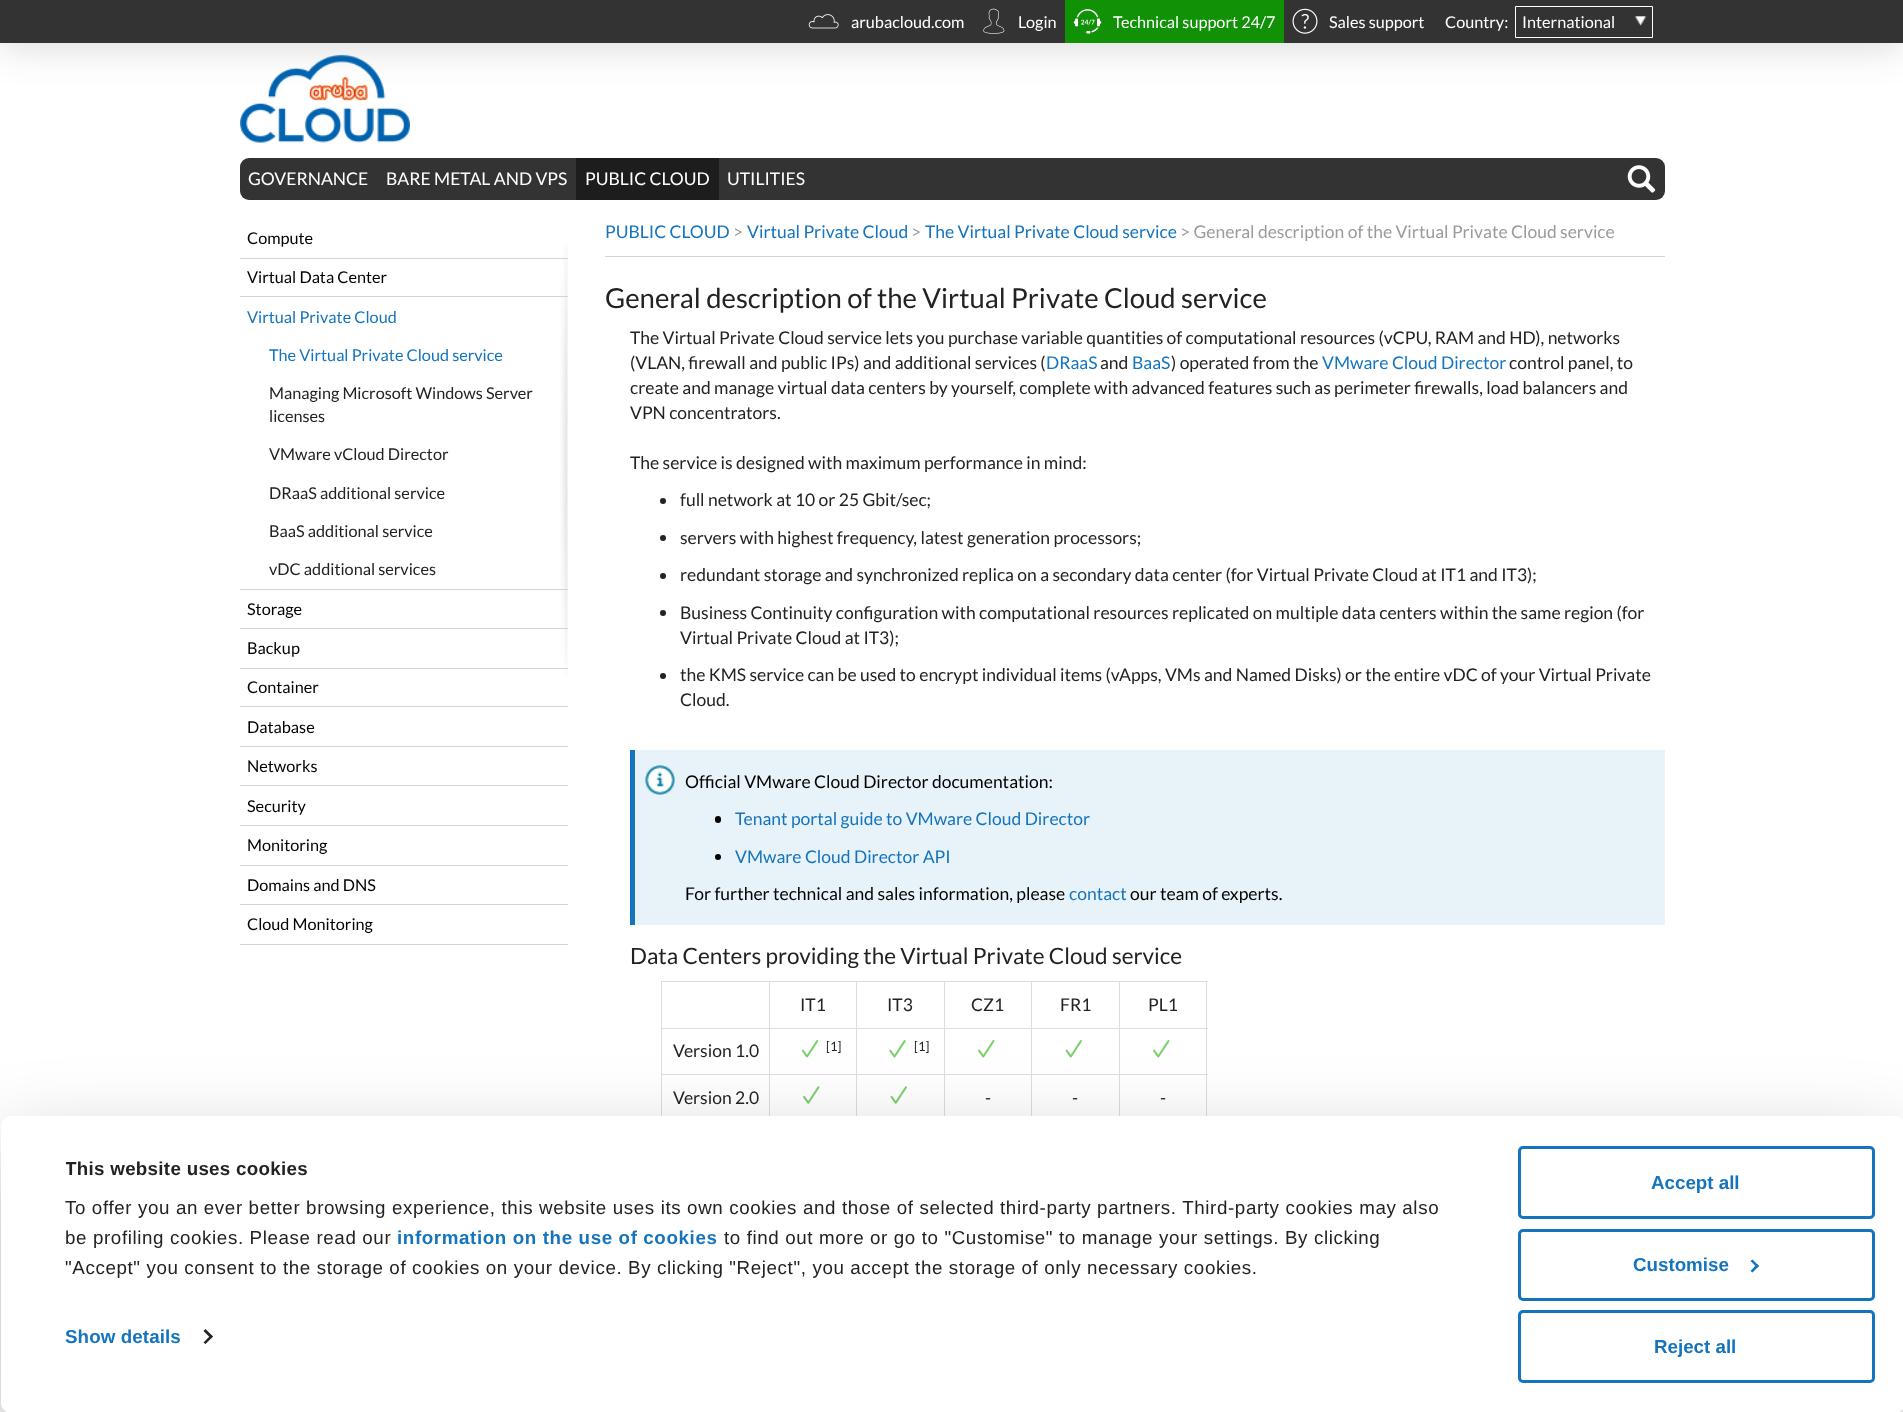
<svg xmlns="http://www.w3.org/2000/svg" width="1903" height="1412">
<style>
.a{font:16.25px Lato;fill:#fff}
.b{font:17.5px Lato;fill:#fff}
.c{font:16.25px Lato;fill:#000}
.d{font:16.25px Lato;fill:#1474bd}
.e{font:16.25px Lato;fill:#222}
.f{font:17.5px Lato;fill:#1474bd}
.g{font:17.5px Lato;fill:#9b9b9b}
.h{font:27.5px Lato;fill:#222}
.i{font:17.5px Lato;fill:#222}
.j{font:17.5px Lato;fill:#000}
.k{font:22.5px Lato;fill:#222}
.l{font:13px Lato;fill:#222}
.m{font:bold 18.75px Liberation Sans;letter-spacing:0.3px;fill:#222}
.n{font:18.75px Liberation Sans;letter-spacing:0.62px;fill:#222}
.o{font:bold 18.75px Liberation Sans;letter-spacing:0.62px;fill:#1474bd}
.p{font:bold 18.75px Liberation Sans;letter-spacing:0.1px;fill:#1474bd}
.q{font:bold 18.75px Liberation Sans;fill:#1474bd}
</style>
<defs>
<clipPath id="clip1"><path d="M66 1154h1415v129H66z"/></clipPath>
</defs>
<rect width="100%" height="100%" fill="#fff"/>
<path fill="#32323233" filter="blur(19px)" d="M0 3h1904v42H0z"/>
<path fill="#333" d="M0 0h1903v43H0z"/>
<image href="1.png" x="808" y="14" width="31" height="15"/>
<image href="2.png" x="983" y="8" width="22" height="26"/>
<path fill="#109106" d="M1065 0h219v43H1065z"/>
<image href="3.png" x="1073" y="9" width="29" height="25"/>
<image href="4.png" x="1292" y="8" width="26" height="26"/>
<image href="5.png" x="1635" y="16" width="12" height="10"/>
<path fill="none" stroke="#fff" d="M1515.5 6.5h137v31H1515.5z"/>
<image href="6.png" x="240" y="54" width="170" height="89"/>
<rect fill="#333" x="240" y="158" width="1425" height="42" rx="9"/>
<path fill="#1d1d1d" d="M576 158h143v42H576z"/>
<image href="7.png" x="1627" y="165" width="29" height="28"/>
<image href="8.png" x="560" y="243" width="8" height="432"/>
<path fill="#d6d3d3" d="M240 258h328v1H240z"/>
<path fill="#d6d3d3" d="M240 296h328v1H240z"/>
<path fill="#d6d3d3" d="M240 589h328v1H240z"/>
<path fill="#d6d3d3" d="M240 628h328v1H240z"/>
<path fill="#d6d3d3" d="M240 668h328v1H240z"/>
<path fill="#d6d3d3" d="M240 706h328v1H240z"/>
<path fill="#d6d3d3" d="M240 746h328v1H240z"/>
<path fill="#d6d3d3" d="M240 785h328v1H240z"/>
<path fill="#d6d3d3" d="M240 825h328v1H240z"/>
<path fill="#d6d3d3" d="M240 865h328v1H240z"/>
<path fill="#d6d3d3" d="M240 904h328v1H240z"/>
<path fill="#d6d3d3" d="M240 944h328v1H240z"/>
<path fill="#d6d3d3" d="M605 256h1060v1H605z"/>
<circle fill="#222" cx="663" cy="501" r="3"/>
<circle fill="#222" cx="663" cy="538" r="3"/>
<circle fill="#222" cx="663" cy="576" r="3"/>
<circle fill="#222" cx="663" cy="613" r="3"/>
<circle fill="#222" cx="663" cy="676" r="3"/>
<path fill="#e8f2f9" d="M635 750h1030v175H635z"/>
<image href="9.png" x="645" y="765" width="30" height="30"/>
<path fill="#1474bd" d="M630 750h5v175H630z"/>
<rect fill="#000" x="715" y="816" width="6" height="7" rx="3"/>
<circle fill="#000" cx="718" cy="857" r="3"/>
<path fill="#ddd" d="M661 981h547v1H661z"/>
<path fill="#ddd" d="M1206 981h1v140H1206z"/>
<path fill="#ddd" d="M661 981h1v140H661z"/>
<path fill="#ddd" d="M1119 1028h89v1H1119z"/>
<path fill="#ddd" d="M1119 1074h89v1H1119z"/>
<path fill="#ddd" d="M1119 1074h1v47H1119z"/>
<path fill="#ddd" d="M1031 1074h89v1H1031z"/>
<path fill="#ddd" d="M1119 1028h1v47H1119z"/>
<path fill="#ddd" d="M1031 1028h89v1H1031z"/>
<path fill="#ddd" d="M1031 1074h1v47H1031z"/>
<path fill="#ddd" d="M944 1074h89v1H944z"/>
<path fill="#ddd" d="M1031 1028h1v47H1031z"/>
<path fill="#ddd" d="M944 1028h89v1H944z"/>
<path fill="#ddd" d="M944 1074h1v47H944z"/>
<path fill="#ddd" d="M856 1074h89v1H856z"/>
<path fill="#ddd" d="M944 1028h1v47H944z"/>
<path fill="#ddd" d="M856 1028h89v1H856z"/>
<path fill="#ddd" d="M856 1074h1v47H856z"/>
<path fill="#ddd" d="M769 1074h89v1H769z"/>
<path fill="#ddd" d="M856 1028h1v47H856z"/>
<path fill="#ddd" d="M769 1028h89v1H769z"/>
<path fill="#ddd" d="M769 1074h1v47H769z"/>
<path fill="#ddd" d="M661 1074h109v1H661z"/>
<path fill="#ddd" d="M769 1028h1v47H769z"/>
<path fill="#ddd" d="M661 1028h109v1H661z"/>
<path fill="#ddd" d="M769 981h1v48H769z"/>
<path fill="#ddd" d="M856 981h1v48H856z"/>
<path fill="#ddd" d="M944 981h1v48H944z"/>
<path fill="#ddd" d="M1031 981h1v48H1031z"/>
<path fill="#ddd" d="M1119 981h1v48H1119z"/>
<image href="10.png" x="801" y="1040" width="18" height="18"/>
<image href="11.png" x="889" y="1040" width="17" height="18"/>
<image href="12.png" x="978" y="1040" width="17" height="18"/>
<image href="13.png" x="1065" y="1040" width="17" height="18"/>
<image href="12.png" x="1153" y="1040" width="17" height="18"/>
<image href="14.png" x="803" y="1086" width="17" height="18"/>
<image href="15.png" x="890" y="1086" width="17" height="18"/>
<rect fill="#0000004d" filter="blur(44px)" x="1" y="1154" width="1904" height="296" rx="10"/>
<rect fill="#fff" x="1" y="1116" width="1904" height="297" rx="10"/>
<path fill="#222" d="M205.5 1329l7.5 7.5l-2 2l-7.5-7.5z"/>
<path fill="#222" d="M211 1335l2 1.5l-7.5 7.5l-2-1.5z"/>
<rect fill="none" stroke="#1474bd" stroke-width="3" x="1519.5" y="1147.5" width="354" height="70" rx="3.5"/>
<rect fill="none" stroke="#1474bd" stroke-width="3" x="1519.5" y="1230.5" width="354" height="69" rx="3.5"/>
<path fill="#1474bd" d="M1752.5 1259.5l6.5 6.5l-2 1.5l-6.5-6.5z"/>
<path fill="#1474bd" d="M1757 1264l2 2l-6.5 6.5l-2-1.5z"/>
<rect fill="none" stroke="#1474bd" stroke-width="3" x="1519.5" y="1311.5" width="354" height="70" rx="3.5"/>
<text class="a" x="851" y="28">arubacloud.com</text>
<text class="a" x="1018" y="28">Login</text>
<text class="a" x="1113" y="28">Technical support 24/7</text>
<text class="a" x="1329" y="28">Sales support</text>
<text class="a" x="1445" y="28">Country:</text>
<text class="a" x="1522" y="28">International</text>
<text class="b" x="248" y="185">GOVERNANCE</text>
<text class="b" x="386" y="185">BARE METAL AND VPS</text>
<text class="b" x="585" y="185">PUBLIC CLOUD</text>
<text class="b" x="727" y="185">UTILITIES</text>
<text class="c" x="247" y="244">Compute</text>
<text class="c" x="247" y="283">Virtual Data Center</text>
<text class="d" x="247" y="323">Virtual Private Cloud</text>
<text class="d" x="269" y="361">The Virtual Private Cloud service</text>
<text class="e" x="269" y="399">Managing Microsoft Windows Server</text>
<text class="e" x="269" y="422">licenses</text>
<text class="e" x="269" y="460">VMware vCloud Director</text>
<text class="e" x="269" y="499">DRaaS additional service</text>
<text class="e" x="269" y="537">BaaS additional service</text>
<text class="e" x="269" y="575">vDC additional services</text>
<text class="c" x="247" y="615">Storage</text>
<text class="c" x="247" y="654">Backup</text>
<text class="c" x="247" y="693">Container</text>
<text class="c" x="247" y="733">Database</text>
<text class="c" x="247" y="772">Networks</text>
<text class="c" x="247" y="812">Security</text>
<text class="c" x="247" y="851">Monitoring</text>
<text class="c" x="247" y="891">Domains and DNS</text>
<text class="c" x="247" y="930">Cloud Monitoring</text>
<text class="f" x="605" y="238">PUBLIC CLOUD</text>
<text class="g" x="733" y="238">&gt;</text>
<text class="f" x="747" y="238">Virtual Private Cloud</text>
<text class="g" x="911" y="238">&gt;</text>
<text class="f" x="925" y="238">The Virtual Private Cloud service</text>
<text class="g" x="1180" y="238">&gt; General description of the Virtual Private Cloud service</text>
<text class="h" x="605" y="308">General description of the Virtual Private Cloud service</text>
<text class="i" x="630" y="344">The Virtual Private Cloud service lets you purchase variable quantities of computational resources (vCPU, RAM and HD), networks</text>
<text class="i" x="630" y="369">(VLAN, firewall and public IPs) and additional services (</text>
<text class="f" x="1046" y="369">DRaaS</text>
<text class="i" x="1100" y="369">and</text>
<text class="f" x="1132" y="369">BaaS</text>
<text class="i" x="1171" y="369">) operated from the</text>
<text class="f" x="1322" y="369">VMware Cloud Director</text>
<text class="i" x="1509" y="369">control panel, to</text>
<text class="i" x="630" y="394">create and manage virtual data centers by yourself, complete with advanced features such as perimeter firewalls, load balancers and</text>
<text class="i" x="630" y="419">VPN concentrators.</text>
<text class="i" x="630" y="469">The service is designed with maximum performance in mind:</text>
<text class="i" x="680" y="506">full network at 10 or 25 Gbit/sec;</text>
<text class="i" x="680" y="544">servers with highest frequency, latest generation processors;</text>
<text class="i" x="680" y="581">redundant storage and synchronized replica on a secondary data center (for Virtual Private Cloud at IT1 and IT3);</text>
<text class="i" x="680" y="619">Business Continuity configuration with computational resources replicated on multiple data centers within the same region (for</text>
<text class="i" x="680" y="644">Virtual Private Cloud at IT3);</text>
<text class="i" x="680" y="681">the KMS service can be used to encrypt individual items (vApps, VMs and Named Disks) or the entire vDC of your Virtual Private</text>
<text class="i" x="680" y="706">Cloud.</text>
<text class="j" x="685" y="788">Official VMware Cloud Director documentation:</text>
<text class="f" x="735" y="825">Tenant portal guide to VMware Cloud Director</text>
<text class="f" x="735" y="863">VMware Cloud Director API</text>
<text class="j" x="685" y="900">For further technical and sales information, please</text>
<text class="f" x="1069" y="900">contact</text>
<text class="j" x="1130" y="900">our team of experts.</text>
<text class="k" x="630" y="964">Data Centers providing the Virtual Private Cloud service</text>
<text class="i" x="800" y="1011">IT1</text>
<text class="i" x="887" y="1011">IT3</text>
<text class="i" x="971" y="1011">CZ1</text>
<text class="i" x="1060" y="1011">FR1</text>
<text class="i" x="1148" y="1011">PL1</text>
<text class="i" x="673" y="1057">Version 1.0</text>
<text class="l" x="826" y="1051">[1]</text>
<text class="l" x="914" y="1051">[1]</text>
<text class="i" x="673" y="1104">Version 2.0</text>
<text class="i" x="985" y="1104">-</text>
<text class="i" x="1072" y="1104">-</text>
<text class="i" x="1160" y="1104">-</text>
<g clip-path="url(#clip1)">
<text class="m" x="65" y="1175">This website uses cookies</text>
</g>
<text class="n" x="65" y="1214">To offer you an ever better browsing experience, this website uses its own cookies and those of selected third-party partners. Third-party cookies may also</text>
<text class="n" x="65" y="1244">be profiling cookies. Please read our</text>
<text class="o" x="397" y="1244">information on the use of cookies</text>
<text class="n" x="724" y="1244">to find out more or go to "Customise" to manage your settings. By clicking</text>
<text class="n" x="65" y="1274">"Accept" you consent to the storage of cookies on your device. By clicking "Reject", you accept the storage of only necessary cookies.</text>
<text class="p" x="65" y="1343">Show details</text>
<text class="q" x="1651" y="1189">Accept all</text>
<text class="q" x="1633" y="1271">Customise</text>
<text class="q" x="1654" y="1353">Reject all</text>
</svg>
